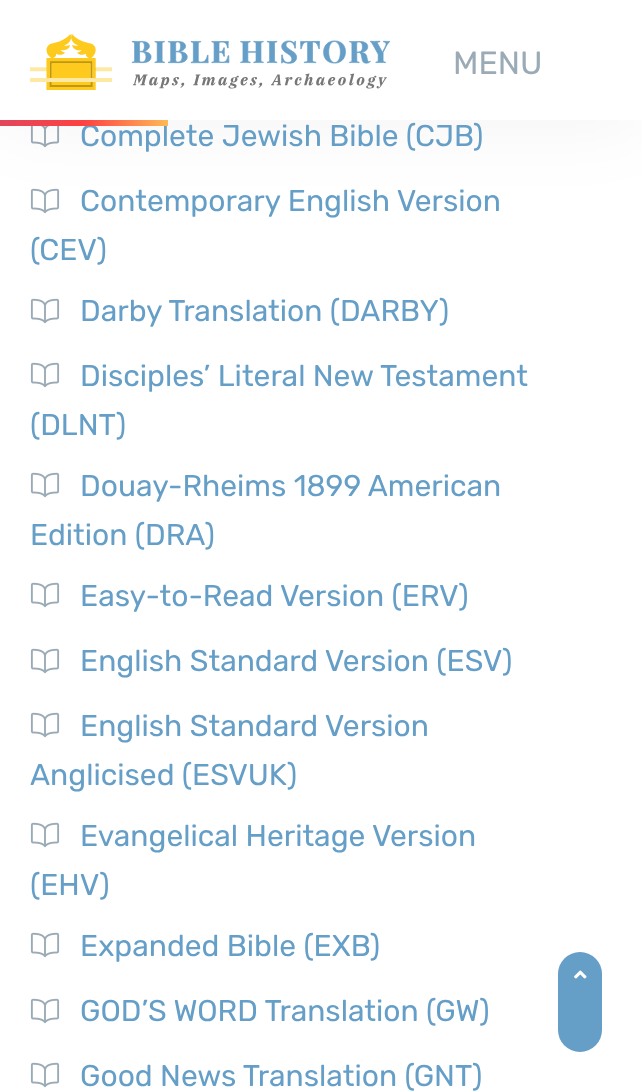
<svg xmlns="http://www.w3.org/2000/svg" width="642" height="1091">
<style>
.a{font:32px Rubik;fill:#9babb6}
.b{font:30px Rubik;fill:#659ec7}
</style>
<defs>
<linearGradient id="g1" gradientUnits="userSpaceOnUse" x1="0" y1="123" x2="168" y2="123"><stop offset="0" stop-color="#e2465c"/><stop offset="0.5" stop-color="#fe4141"/><stop offset="1" stop-color="#ffb957"/></linearGradient>
</defs>
<rect width="100%" height="100%" fill="#fff"/>
<image href="2.png" x="30" y="126" width="30" height="22"/>
<image href="3.png" x="30" y="188" width="30" height="26"/>
<path fill="#0000000d" filter="blur(40px)" d="M0 0h642v120H0z"/>
<path fill="#fff" d="M0 0h642v120H0z"/>
<image href="1.png" x="30" y="34" width="360" height="56"/>
<image href="3.png" x="30" y="298" width="30" height="26"/>
<image href="3.png" x="30" y="362" width="30" height="26"/>
<image href="3.png" x="30" y="472" width="30" height="26"/>
<image href="3.png" x="30" y="582" width="30" height="26"/>
<image href="3.png" x="30" y="648" width="30" height="26"/>
<image href="3.png" x="30" y="712" width="30" height="26"/>
<image href="3.png" x="30" y="822" width="30" height="26"/>
<image href="3.png" x="30" y="932" width="30" height="26"/>
<image href="3.png" x="30" y="998" width="30" height="26"/>
<image href="3.png" x="30" y="1062" width="30" height="26"/>
<rect fill="#659ec7" x="558" y="952" width="44" height="100" rx="22"/>
<image href="4.png" x="574" y="970" width="13" height="9"/>
<text class="a" x="453" y="74">MENU</text>
<text class="b" x="80" y="146">Complete Jewish Bible (CJB)</text>
<path fill="url(#g1)" d="M0 120h168v6H0z"/>
<text class="b" x="80" y="211">Contemporary English Version</text>
<text class="b" x="30" y="260">(CEV)</text>
<text class="b" x="80" y="321">Darby Translation (DARBY)</text>
<text class="b" x="80" y="386">Disciples’ Literal New Testament</text>
<text class="b" x="30" y="435">(DLNT)</text>
<text class="b" x="80" y="496">Douay-Rheims 1899 American</text>
<text class="b" x="30" y="545">Edition (DRA)</text>
<text class="b" x="80" y="606">Easy-to-Read Version (ERV)</text>
<text class="b" x="80" y="671">English Standard Version (ESV)</text>
<text class="b" x="80" y="736">English Standard Version</text>
<text class="b" x="30" y="785">Anglicised (ESVUK)</text>
<text class="b" x="80" y="846">Evangelical Heritage Version</text>
<text class="b" x="30" y="895">(EHV)</text>
<text class="b" x="80" y="956">Expanded Bible (EXB)</text>
<text class="b" x="80" y="1021">GOD’S WORD Translation (GW)</text>
<text class="b" x="80" y="1086">Good News Translation (GNT)</text>
</svg>
